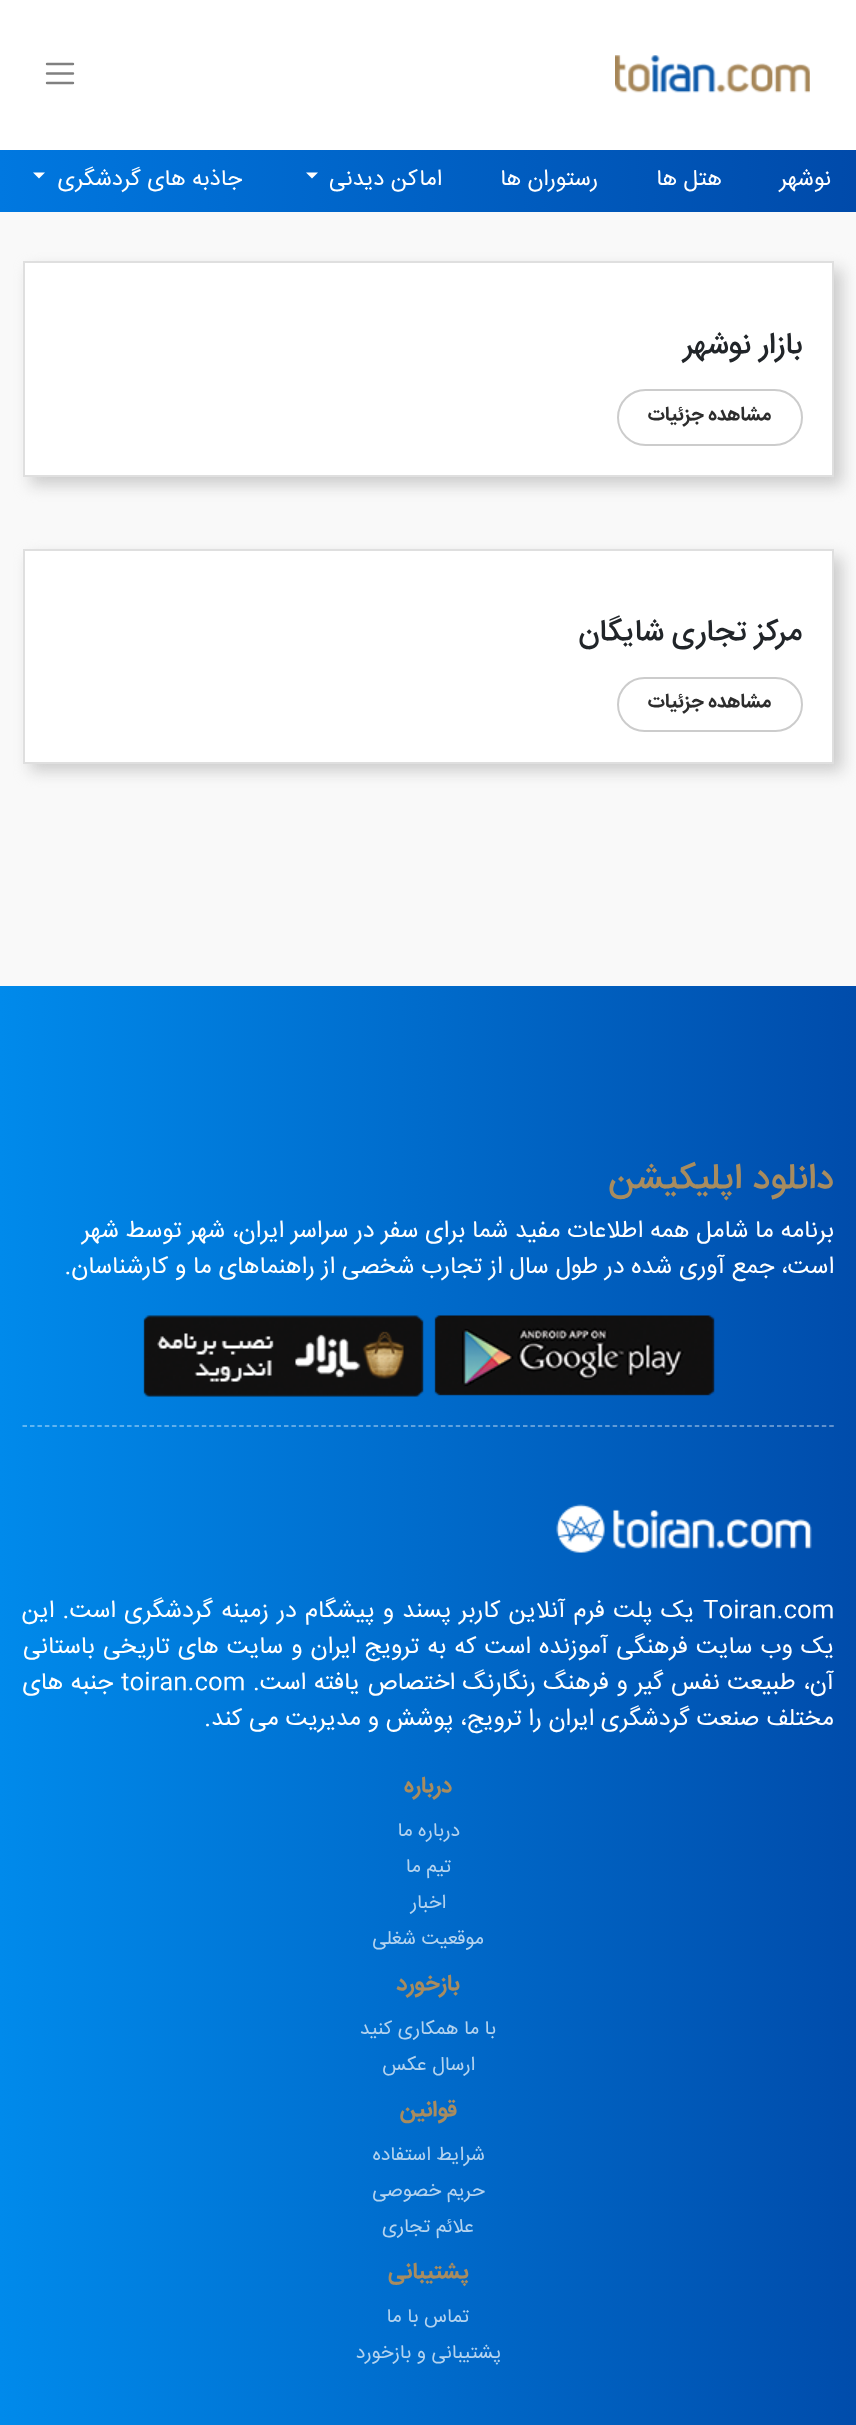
<svg xmlns="http://www.w3.org/2000/svg" width="856" height="2425">
<style>
.a{font:22.5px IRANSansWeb;direction:rtl;fill:#fff}
.b{font:500 30px IRANSansWeb;direction:rtl;fill:#212529}
.c{font:bold 19.5px IRANSansWeb;direction:rtl;fill:#2d2d2d}
.d{font:500 36px IRANSansWeb;direction:rtl;fill:#a88c5f}
.e{font:24px IRANSansWeb;direction:rtl;fill:#fff}
.f{font:24px IRANSansWeb;fill:#fff}
.g{font:bold 22.5px IRANSansWeb;direction:rtl;fill:#a88c5f}
.h{font:19.5px IRANSansWeb;direction:rtl;fill:#b3d3ef}
</style>
<defs>
<linearGradient id="g1" gradientUnits="userSpaceOnUse" x1="0" y1="181" x2="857" y2="181"><stop offset="0" stop-color="#0078e0"/><stop offset="1" stop-color="#004aaa"/></linearGradient>
<linearGradient id="g2" gradientUnits="userSpaceOnUse" x1="0" y1="1827" x2="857" y2="1827"><stop offset="0" stop-color="#008aeb"/><stop offset="1" stop-color="#004cab"/></linearGradient>
</defs>
<rect width="100%" height="100%" fill="#f9f9f9"/>
<path fill="#fff" d="M0 0h856v150H0z"/>
<image href="1.png" x="615" y="55" width="195" height="38"/>
<path fill="none" stroke="#808080" stroke-width="2.4" stroke-linecap="round" d="M47 64h26m-26 9.5h26m-26 9.5h26"/>
<path fill="url(#g1)" d="M0 150h856v62H0z"/>
<path fill="#fff" d="M306 172.5h12l-6 6z"/>
<path fill="#fff" d="M33 172.5h12l-6 6z"/>
<path fill="#ccc" filter="blur(7.5px)" d="M30 269h812v216H30z"/>
<path fill="#fff" stroke="#dfdfdf" stroke-width="2" d="M24 262h809v214H24z"/>
<rect fill="none" stroke="#ccc" stroke-width="2" x="618" y="390" width="184" height="55" rx="27.5"/>
<path fill="#ccc" filter="blur(7.5px)" d="M30 557h812v214H30z"/>
<path fill="#fff" stroke="#dfdfdf" stroke-width="2" d="M24 550h809v213H24z"/>
<rect fill="none" stroke="#ccc" stroke-width="2" x="618" y="678" width="184" height="53" rx="26.5"/>
<path fill="url(#g2)" d="M0 986h856v1439H0z"/>
<path fill="none" stroke="#ffffff80" stroke-width="1.5" stroke-dasharray="4.5 2.97" d="M22.5 1426h811.5"/>
<image href="2.png" x="434" y="1315" width="281" height="81"/>
<image href="3.png" x="143" y="1315" width="281" height="82"/>
<image href="4.png" x="556" y="1504" width="256" height="49"/>
<text class="a" x="831" y="185">نوشهر</text>
<text class="a" x="722" y="185">هتل ها</text>
<text class="a" x="598" y="185">رستوران ها</text>
<text class="a" x="442" y="185">اماکن دیدنی</text>
<text class="a" x="242" y="185">جاذبه های گردشگری</text>
<text class="b" x="802" y="353">بازار نوشهر</text>
<text class="c" x="771" y="420">مشاهده جزئیات</text>
<text class="b" x="802" y="640">مرکز تجاری شایگان</text>
<text class="c" x="771" y="707">مشاهده جزئیات</text>
<text class="d" x="834" y="1188">دانلود اپلیکیشن</text>
<text class="e" x="834" y="1237">برنامه ما شامل همه اطلاعات مفید شما برای سفر در سراسر ایران، شهر توسط شهر</text>
<text class="e" x="834" y="1273">است، جمع آوری شده در طول سال از تجارب شخصی از راهنماهای ما و کارشناسان.</text>
<text class="f" x="703" y="1617">Toiran.com</text>
<text class="e" x="694" y="1617" word-spacing="1.5">یک پلت فرم آنلاین کاربر پسند و پیشگام در زمینه گردشگری است. این</text>
<text class="e" x="834" y="1653" word-spacing="1.3">یک وب سایت فرهنگی آموزنده است که به ترویج ایران و سایت های تاریخی باستانی</text>
<text class="e" x="834" y="1689" word-spacing="0.75">آن، طبیعت نفس گیر و فرهنگ رنگارنگ اختصاص یافته است.</text>
<text class="f" x="121" y="1689">toiran.com</text>
<text class="e" x="113" y="1689" word-spacing="0.75">جنبه های</text>
<text class="e" x="834" y="1725">مختلف صنعت گردشگری ایران را ترویج، پوشش و مدیریت می کند.</text>
<text class="g" x="452" y="1792">درباره</text>
<text class="h" x="460" y="1836">درباره ما</text>
<text class="h" x="451" y="1872">تیم ما</text>
<text class="h" x="446" y="1908">اخبار</text>
<text class="h" x="484" y="1944">موقعیت شغلی</text>
<text class="g" x="460" y="1990">بازخورد</text>
<text class="h" x="496" y="2034">با ما همکاری کنید</text>
<text class="h" x="475" y="2070">ارسال عکس</text>
<text class="g" x="457" y="2116">قوانین</text>
<text class="h" x="485" y="2160">شرایط استفاده</text>
<text class="h" x="485" y="2196">حریم خصوصی</text>
<text class="h" x="474" y="2232">علائم تجاری</text>
<text class="g" x="469" y="2278">پشتیبانی</text>
<text class="h" x="469" y="2322">تماس با ما</text>
<text class="h" x="501" y="2358">پشتیبانی و بازخورد</text>
</svg>
